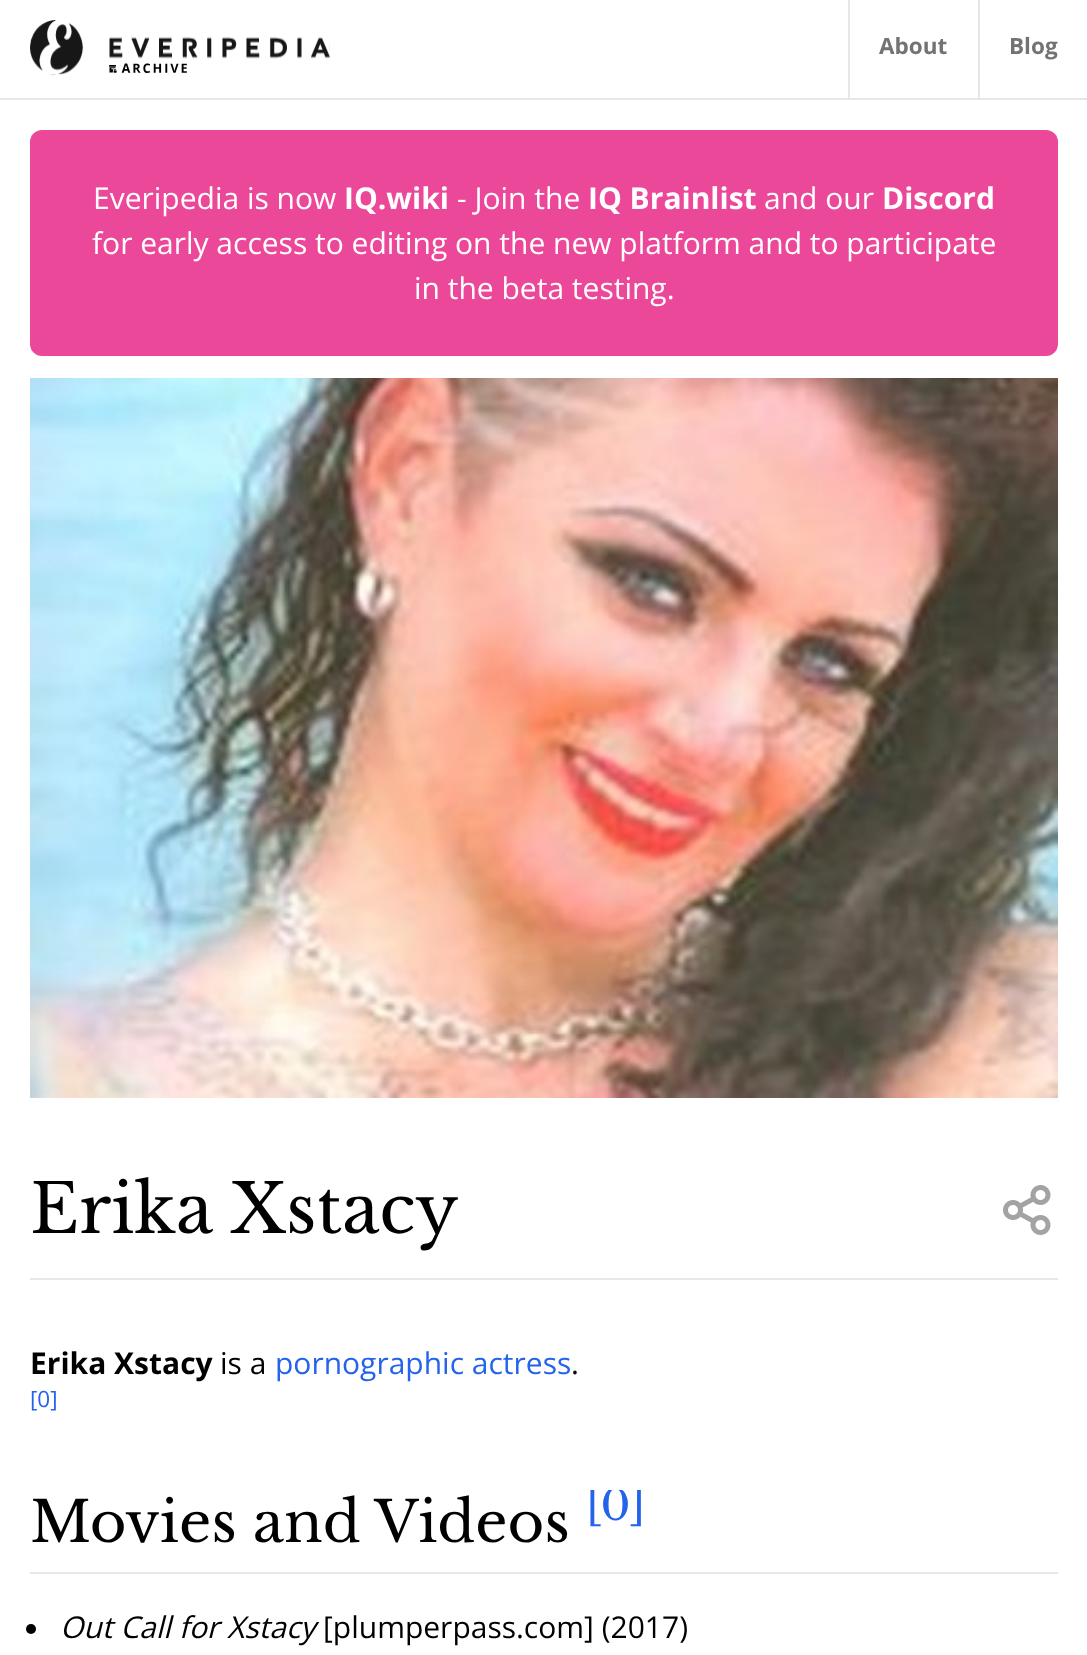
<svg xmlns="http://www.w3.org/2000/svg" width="1087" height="1655">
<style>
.a{font:bold 22.5px Open Sans;fill:#737373}
.b{font:30px Open Sans;fill:#fff}
.c{font:bold 30px Open Sans;fill:#fff}
.d{font:67.5px Libre Baskerville;fill:#000}
.e{font:bold 30px Open Sans;fill:#000}
.f{font:30px Open Sans;fill:#000}
.g{font:30px Open Sans;fill:#2563eb}
.h{font:22.5px Open Sans;fill:#2563eb}
.i{font:56.25px Libre Baskerville;fill:#000}
.j{font:42px Libre Baskerville;fill:#2563eb}
.k{font:italic 30px Open Sans;fill:#000}
</style>
<defs>
<clipPath id="clip1"><path d="M30 1490h1028v82H30z"/></clipPath>
</defs>
<rect width="100%" height="100%" fill="#fff"/>
<path fill="#e5e7eb" d="M0 98h1087v2H0z"/>
<image href="1.png" x="30" y="20" width="300" height="55"/>
<path fill="#e5e7eb" d="M848 0h2v98H848z"/>
<path fill="#e5e7eb" d="M978 0h2v98H978z"/>
<rect fill="#ec4899" x="30" y="130" width="1028" height="226" rx="12"/>
<image href="2.png" x="30" y="378" width="1028" height="720"/>
<path fill="#e5e7eb" d="M30 1278h1028v2H30z"/>
<image href="3.png" x="1003" y="1185" width="48" height="50"/>
<path fill="#e5e7eb" d="M30 1572h1028v2H30z"/>
<circle fill="#000" cx="31" cy="1629" r="5"/>
<text class="a" x="879" y="54">About</text>
<text class="a" x="1009" y="54">Blog</text>
<text class="b" x="93" y="209">Everipedia is now</text>
<text class="c" x="344" y="209">IQ.wiki</text>
<text class="b" x="457" y="209">- Join the</text>
<text class="c" x="588" y="209">IQ Brainlist</text>
<text class="b" x="764" y="209">and our</text>
<text class="c" x="882" y="209">Discord</text>
<text class="b" x="92" y="254">for early access to editing on the new platform and to participate</text>
<text class="b" x="414" y="299">in the beta testing.</text>
<text class="d" x="30" y="1233">Erika Xstacy</text>
<text class="e" x="30" y="1374">Erika Xstacy</text>
<text class="f" x="220" y="1374">is a</text>
<text class="g" x="275" y="1374">pornographic actress</text>
<text class="f" x="571" y="1374">.</text>
<text class="h" x="30" y="1407">[0]</text>
<text class="i" x="30" y="1542">Movies and Videos</text>
<g clip-path="url(#clip1)">
<text class="j" x="586" y="1520">[0]</text>
</g>
<text class="k" x="60" y="1638">Out Call for Xstacy</text>
<text class="f" x="323" y="1638">[plumperpass.com] (2017)</text>
</svg>
